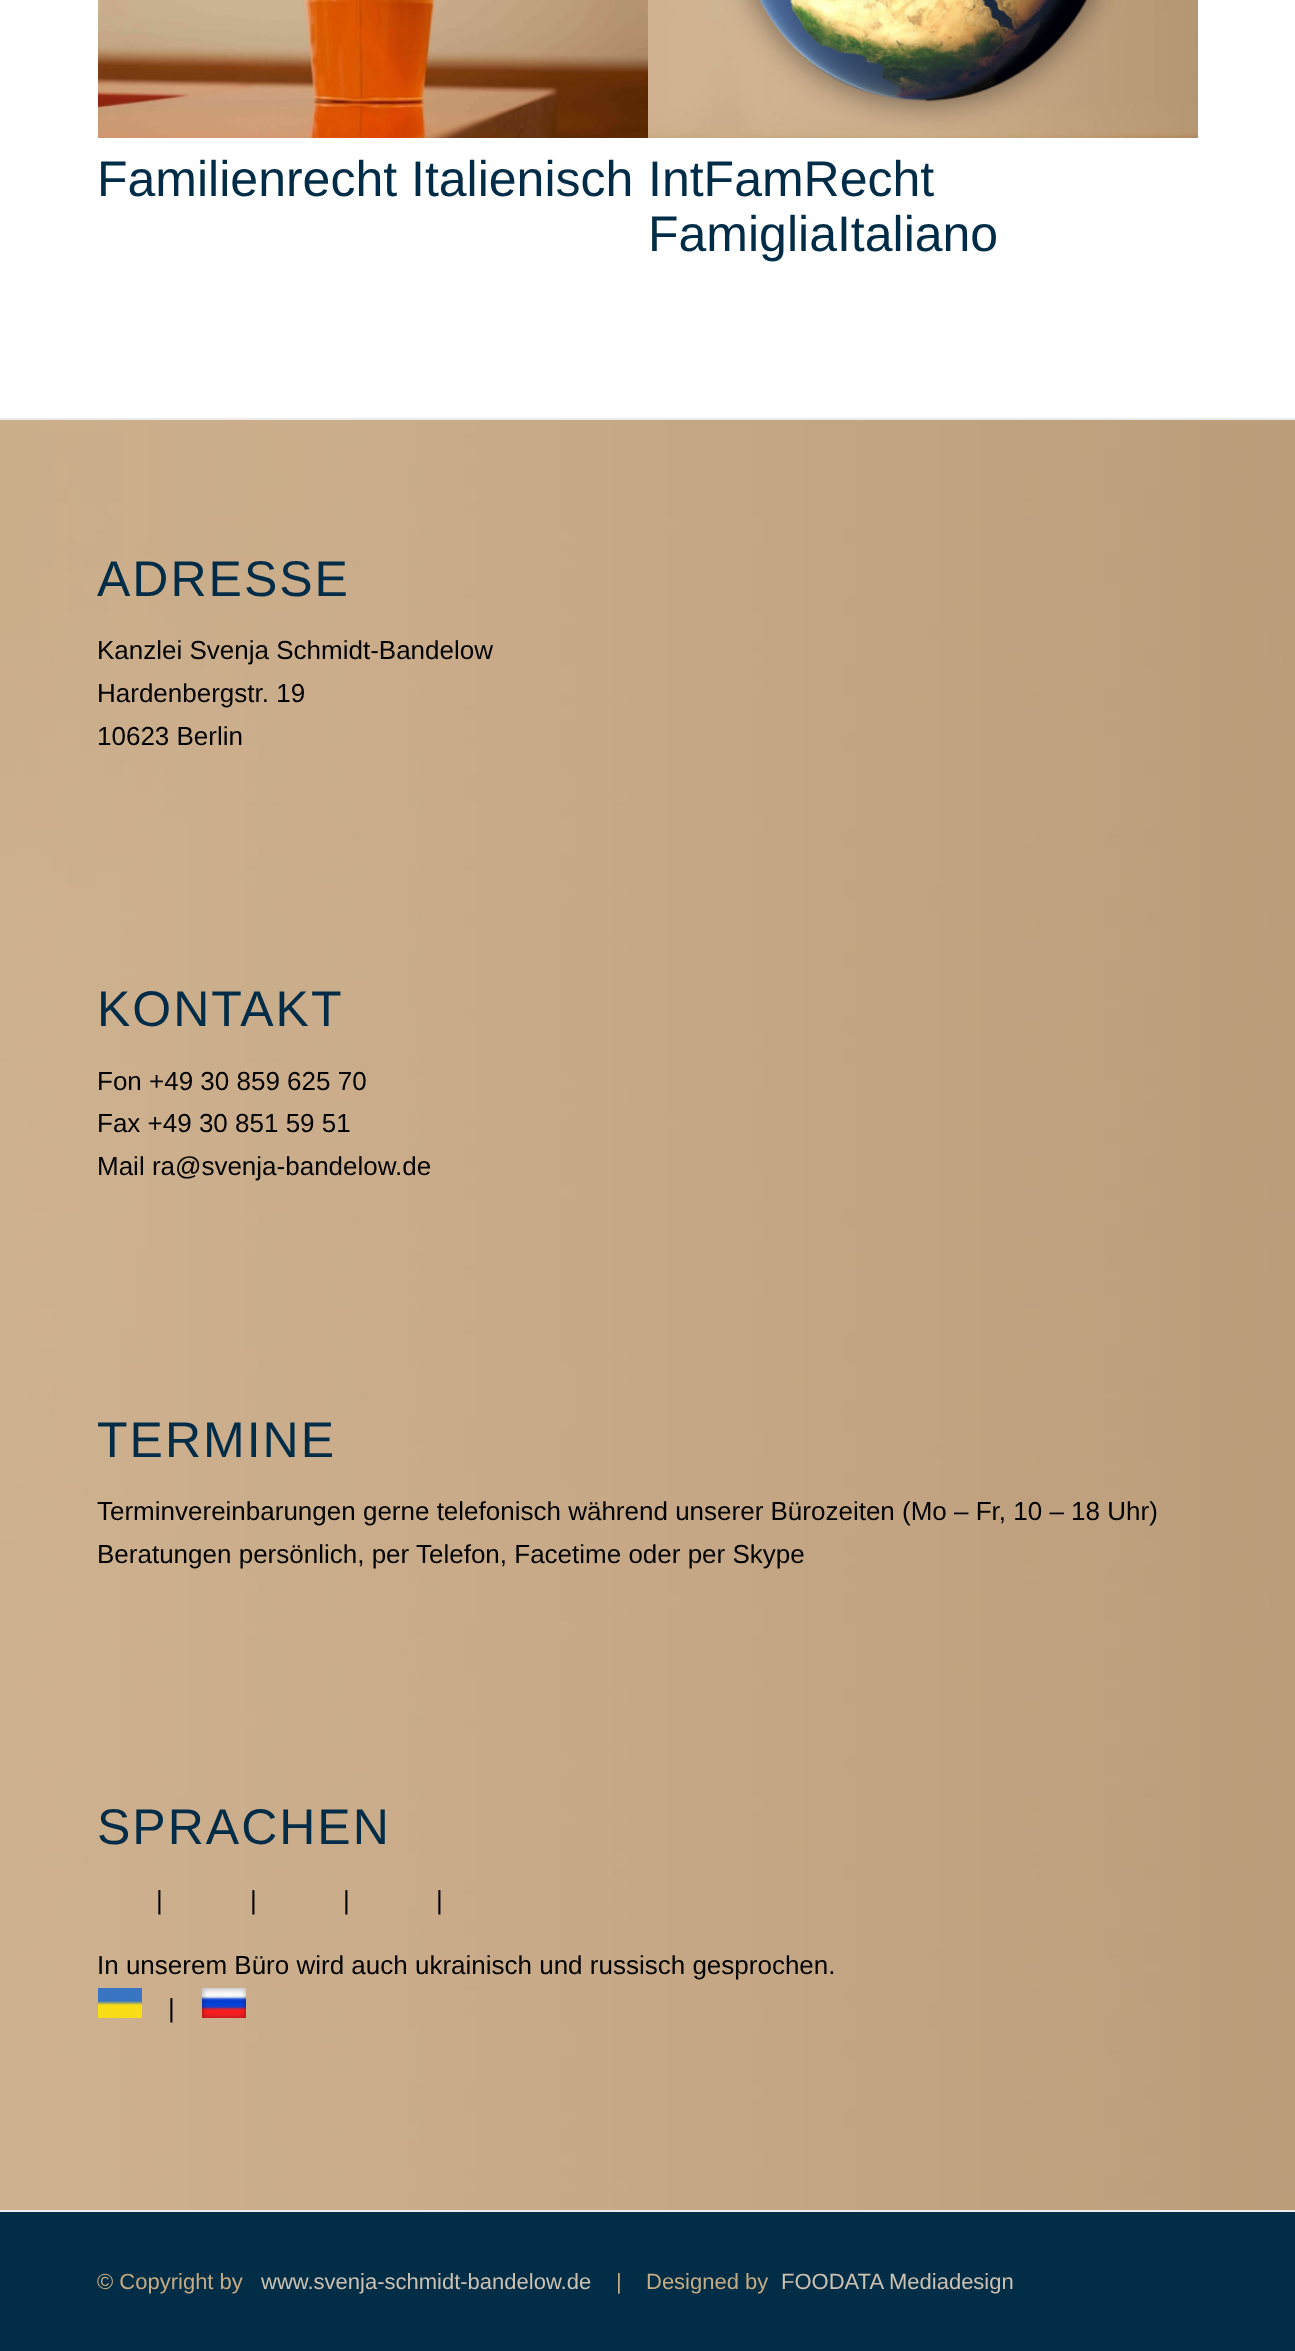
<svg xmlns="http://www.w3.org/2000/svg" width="1295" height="2351">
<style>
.a{font:50px Liberation Sans;fill:#002c47}
.b{font:50px Liberation Sans;letter-spacing:2px;fill:#002c47}
.c{font:26px Liberation Sans;fill:#000}
.d{font:22px Liberation Sans;fill:#c7ab84}
.e{font:22px Liberation Sans;fill:#ccc1b2}
</style>
<rect width="100%" height="100%" fill="#fff"/>
<image href="1.png" x="98" y="0" width="550" height="138"/>
<image href="2.png" x="648" y="0" width="550" height="138"/>
<image href="3.png" x="0" y="420" width="1295" height="1790"/>
<path fill="#ebebeb" d="M0 418h1295v2H0z"/>
<image href="4.png" x="98" y="1988" width="44" height="30"/>
<image href="5.png" x="202" y="1988" width="44" height="30"/>
<path fill="#022d46" d="M0 2212h1295v139H0z"/>
<path fill="#ebebeb" d="M0 2210h1295v2H0z"/>
<text class="a" x="97" y="196">Familienrecht Italienisch</text>
<text class="a" x="648" y="196">IntFamRecht</text>
<text class="a" x="648" y="251">FamigliaItaliano</text>
<text class="b" x="97" y="596">ADRESSE</text>
<text class="c" x="97" y="659">Kanzlei Svenja Schmidt-Bandelow</text>
<text class="c" x="97" y="702">Hardenbergstr. 19</text>
<text class="c" x="97" y="745">10623 Berlin</text>
<text class="b" x="97" y="1026">KONTAKT</text>
<text class="c" x="97" y="1090">Fon +49 30 859 625 70</text>
<text class="c" x="97" y="1132">Fax +49 30 851 59 51</text>
<text class="c" x="97" y="1175">Mail ra@svenja-bandelow.de</text>
<text class="b" x="97" y="1457">TERMINE</text>
<text class="c" x="97" y="1520">Terminvereinbarungen gerne telefonisch während unserer Bürozeiten (Mo – Fr, 10 – 18 Uhr)</text>
<text class="c" x="97" y="1563">Beratungen persönlich, per Telefon, Facetime oder per Skype</text>
<text class="b" x="97" y="1844">SPRACHEN</text>
<text class="c" x="156" y="1909">|</text>
<text class="c" x="250" y="1909">|</text>
<text class="c" x="343" y="1909">|</text>
<text class="c" x="436" y="1909">|</text>
<text class="c" x="97" y="1974">In unserem Büro wird auch ukrainisch und russisch gesprochen.</text>
<text class="c" x="168" y="2017">|</text>
<text class="d" x="97" y="2289">© Copyright by</text>
<text class="e" x="261" y="2289">www.svenja-schmidt-bandelow.de</text>
<text class="d" x="616" y="2289">|</text>
<text class="d" x="646" y="2289">Designed by</text>
<text class="e" x="781" y="2289">FOODATA Mediadesign</text>
</svg>
